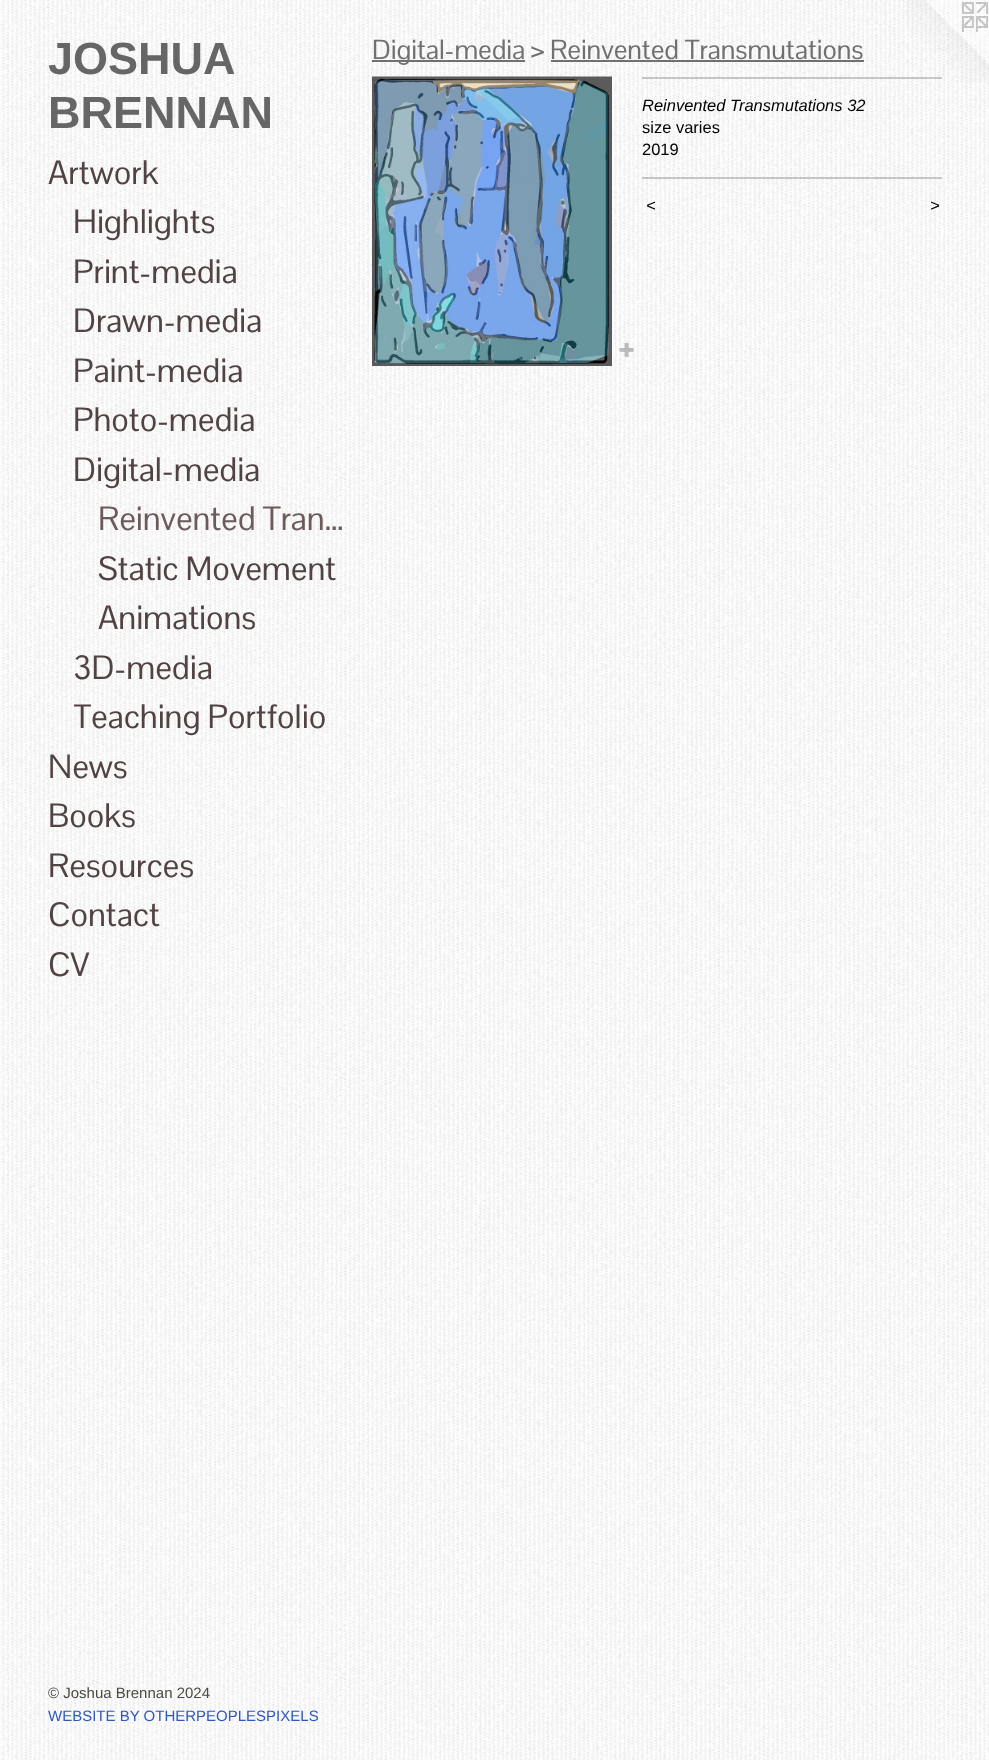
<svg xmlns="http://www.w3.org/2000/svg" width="989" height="1760">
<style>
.a{font:bold 45px Arimo;fill:#666}
.b{font:33px Pontano Sans;fill:#514343}
.c{font:33px Pontano Sans;fill:#6d5a5a}
.d{font:15px Liberation Sans;fill:#4a4945}
.e{font:15px Liberation Sans;fill:#2f58bc}
.f{font:27px Pontano Sans;fill:#707070}
.g{font:italic 16.5px Liberation Sans;fill:#000}
.h{font:16.5px Liberation Sans;fill:#000}
.i{font:italic 16.5px Liberation Sans;letter-spacing:2px;fill:#000}
</style>
<defs>
<clipPath id="clip1"><path d="M74 693h274v50H74z"/></clipPath>
</defs>
<rect width="100%" height="100%" fill="#fff"/>
<image href="1.png" x="0" y="0" width="989" height="1760"/>
<path fill="#707070" d="M372 60h153v2H372z"/>
<path fill="#707070" d="M551 60h313v2H551z"/>
<image href="2.png" x="372" y="76" width="240" height="290"/>
<image href="3.png" x="619" y="342" width="15" height="15"/>
<image href="4.png" x="906" y="0" width="83" height="83"/>
<path fill="#00000033" d="M642 77h300v2H642z"/>
<path fill="#00000033" d="M642 177h300v2H642z"/>
<text class="a" x="48" y="74">JOSHUA</text>
<text class="a" x="48" y="128">BRENNAN</text>
<text class="b" x="48" y="184">Artwork</text>
<text class="b" x="73" y="233">Highlights</text>
<text class="b" x="73" y="283">Print-media</text>
<text class="b" x="73" y="332">Drawn-media</text>
<text class="b" x="73" y="382">Paint-media</text>
<text class="b" x="73" y="431">Photo-media</text>
<text class="b" x="73" y="481">Digital-media</text>
<text class="c" x="98" y="530">Reinvented Tran…</text>
<text class="b" x="98" y="580">Static Movement</text>
<text class="b" x="98" y="629">Animations</text>
<text class="b" x="73" y="679">3D-media</text>
<g clip-path="url(#clip1)">
<text class="b" x="73" y="728">Teaching Portfolio</text>
</g>
<text class="b" x="48" y="778">News</text>
<text class="b" x="48" y="827">Books</text>
<text class="b" x="48" y="877">Resources</text>
<text class="b" x="48" y="926">Contact</text>
<text class="b" x="48" y="976">CV</text>
<text class="d" x="48" y="1698">© Joshua Brennan 2024</text>
<text class="e" x="48" y="1721">WEBSITE BY OTHERPEOPLESPIXELS</text>
<text class="f" x="372" y="59">Digital-media &gt; Reinvented Transmutations</text>
<text class="g" x="642" y="111">Reinvented Transmutations 32</text>
<text class="h" x="642" y="133">size varies</text>
<text class="h" x="642" y="155">2019</text>
<text class="i" x="646" y="211">&lt;</text>
<text class="i" x="930" y="211">&gt;</text>
</svg>
